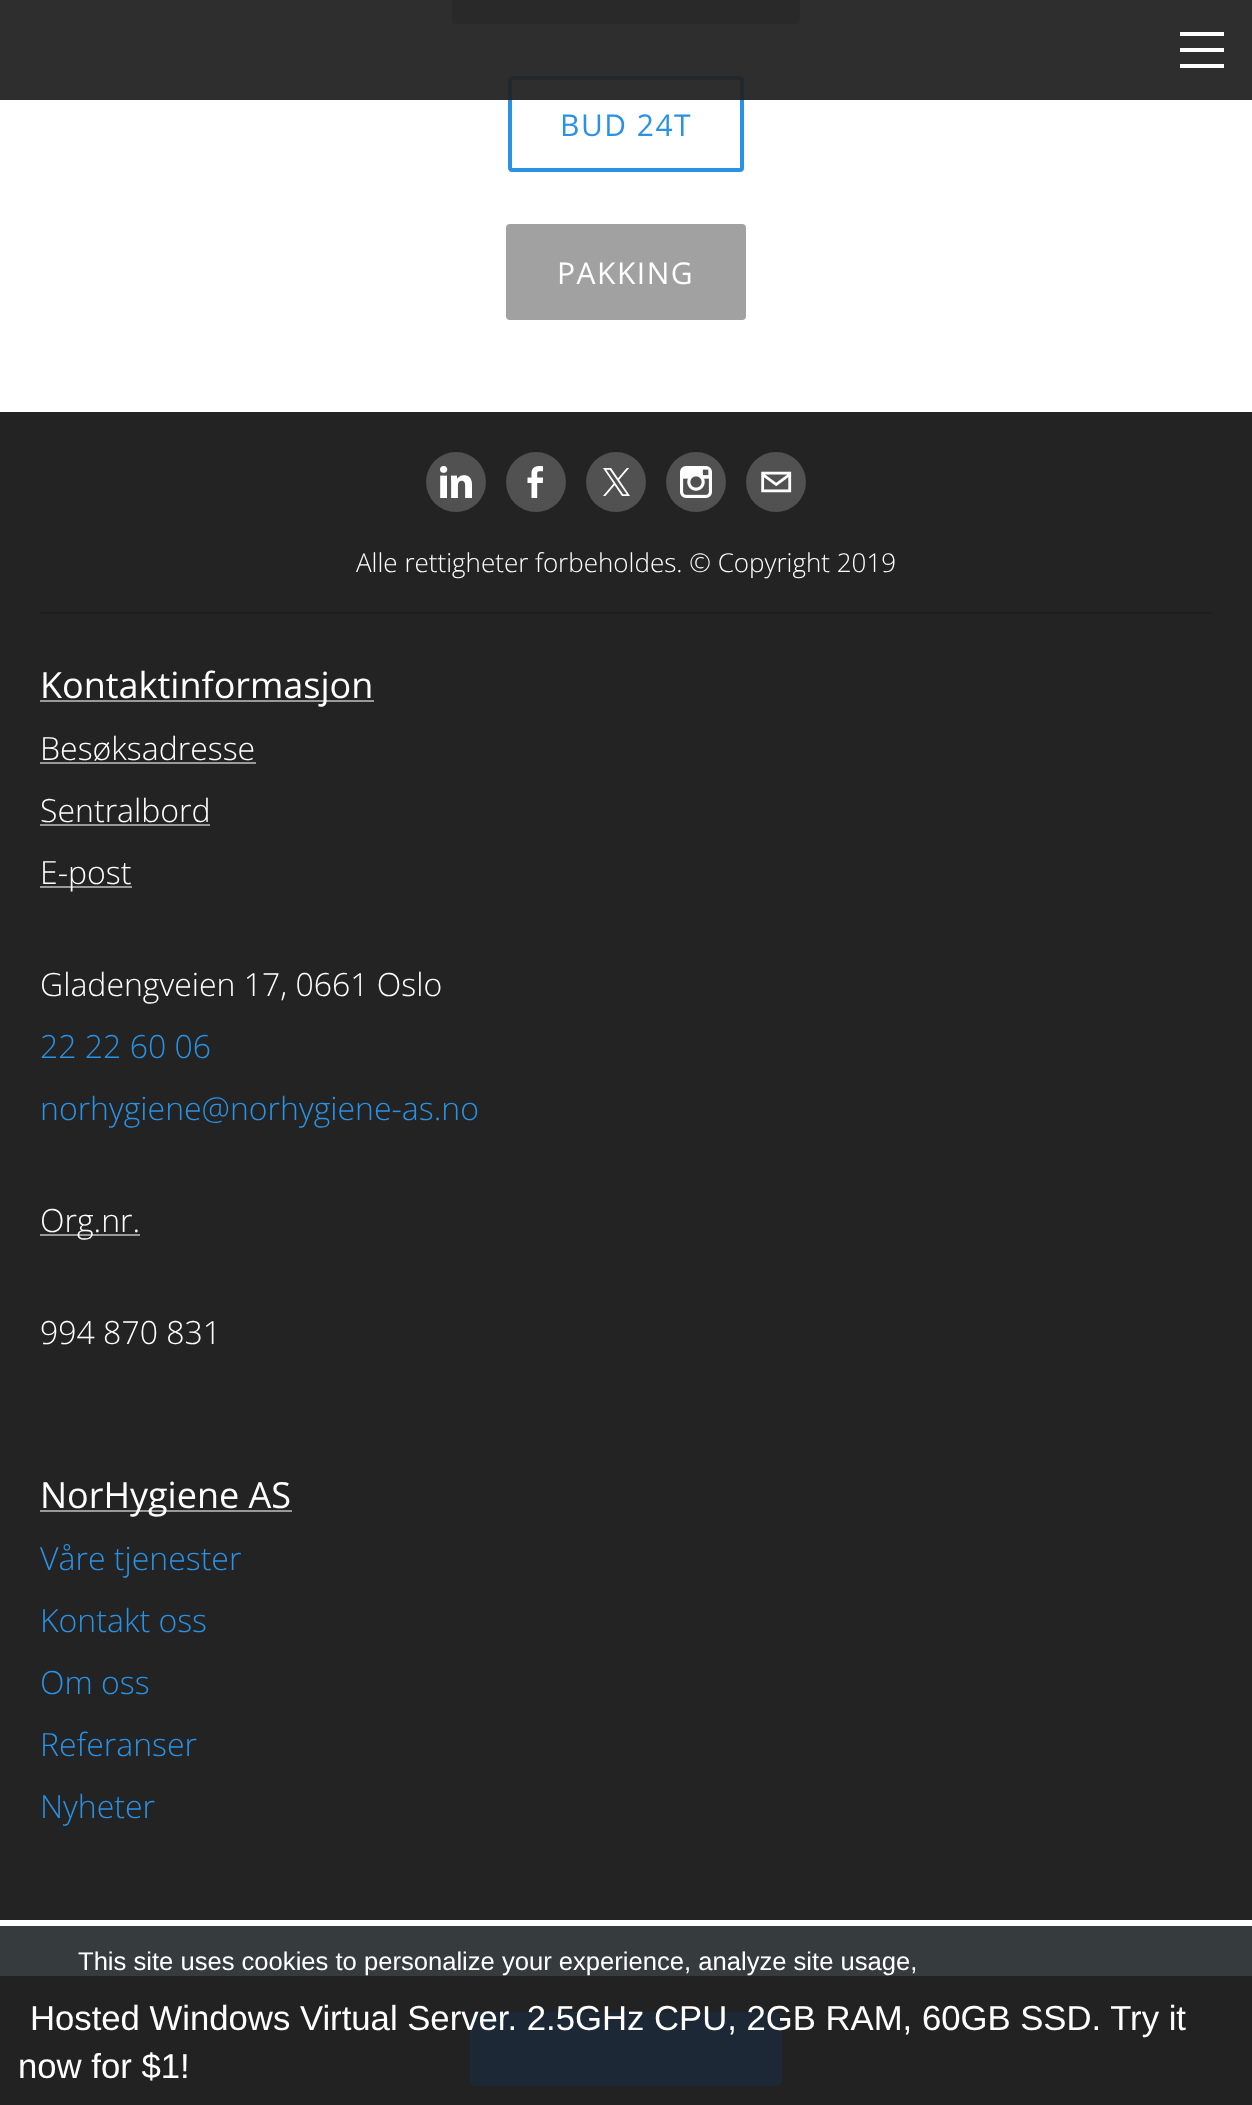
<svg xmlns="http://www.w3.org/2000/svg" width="1252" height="2105">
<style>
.a{font:30px Open Sans;letter-spacing:1.5px;fill:#2a92e5}
.b{font:30px Open Sans;letter-spacing:1.5px;fill:#fff}
.c{font:300 26px Open Sans;fill:#fff}
.d{font:36px Open Sans;fill:#fff}
.e{font:300 32px Open Sans;fill:#fff}
.f{font:300 32px Open Sans;fill:#2a92e5}
.g{font:25.6px Liberation Sans;fill:#fff}
.h{font:34.7px Liberation Sans;fill:#fff}
</style>
<rect width="100%" height="100%" fill="#232323"/>
<path fill="#fff" d="M0 0h1252v412H0z"/>
<rect fill="#a1a1a1" stroke="#a1a1a1" stroke-width="4" x="454" y="-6" width="344" height="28" rx="2"/>
<rect fill="none" stroke="#2a92e5" stroke-width="4" x="510" y="78" width="232" height="92" rx="2"/>
<path fill="#232323f2" d="M0 0h1252v100H0z"/>
<path fill="#fff" d="M1180 48h44v4H1180z"/>
<path fill="#fff" d="M1180 32h44v4H1180z"/>
<path fill="#fff" d="M1180 64h44v4H1180z"/>
<rect fill="#a1a1a1" stroke="#a1a1a1" stroke-width="4" x="508" y="226" width="236" height="92" rx="2"/>
<circle fill="#515151" cx="456" cy="482" r="30"/>
<image href="1.png" x="440" y="466" width="32" height="32"/>
<circle fill="#515151" cx="536" cy="482" r="30"/>
<image href="2.png" x="527" y="466" width="17" height="32"/>
<circle fill="#515151" cx="616" cy="482" r="30"/>
<image href="3.png" x="603" y="468" width="27" height="28"/>
<circle fill="#515151" cx="696" cy="482" r="30"/>
<image href="4.png" x="680" y="466" width="32" height="32"/>
<circle fill="#515151" cx="776" cy="482" r="30"/>
<image href="5.png" x="761" y="471" width="31" height="22"/>
<path fill="#1e1e1e" d="M40 612h1172v2H40z"/>
<path fill="#999" d="M40 700h334v2H40z"/>
<path fill="#999" d="M40 762h216v2H40z"/>
<path fill="#999" d="M40 824h170v2H40z"/>
<path fill="#999" d="M40 886h92v2H40z"/>
<path fill="#999" d="M40 1234h100v2H40z"/>
<path fill="#999" d="M40 1510h252v2H40z"/>
<path fill="#363b3e" d="M0 1926h1252v179H0z"/>
<path fill="#fff" d="M0 1920h1252v6H0z"/>
<rect fill="#0073ff" x="470" y="2012" width="312" height="74" rx="6"/>
<path fill="#202020e6" d="M0 1976h1252v129H0z"/>
<text class="a" x="560" y="136">BUD 24T</text>
<text class="b" x="557" y="284">PAKKING</text>
<text class="c" x="356" y="572">Alle rettigheter forbeholdes. © Copyright 2019</text>
<text class="d" x="40" y="698">Kontaktinformasjon</text>
<text class="e" x="40" y="760">Besøksadresse</text>
<text class="e" x="40" y="822">Sentralbord</text>
<text class="e" x="40" y="884">E-post</text>
<text class="e" x="40" y="996">Gladengveien 17, 0661 Oslo</text>
<text class="f" x="40" y="1058">22 22 60 06</text>
<text class="f" x="40" y="1120">norhygiene@norhygiene-as.no</text>
<text class="e" x="40" y="1232">Org.nr.</text>
<text class="e" x="40" y="1344">994 870 831</text>
<text class="d" x="40" y="1508">NorHygiene AS</text>
<text class="f" x="40" y="1570">Våre tjenester</text>
<text class="f" x="40" y="1632">Kontakt oss</text>
<text class="f" x="40" y="1694">Om oss</text>
<text class="f" x="40" y="1756">Referanser</text>
<text class="f" x="40" y="1818">Nyheter</text>
<text class="g" x="78" y="1970">This site uses cookies to personalize your experience, analyze site usage,</text>
<text class="h" x="30" y="2030">Hosted Windows Virtual Server. 2.5GHz CPU, 2GB RAM, 60GB SSD. Try it</text>
<text class="h" x="18" y="2078">now for $1!</text>
</svg>
